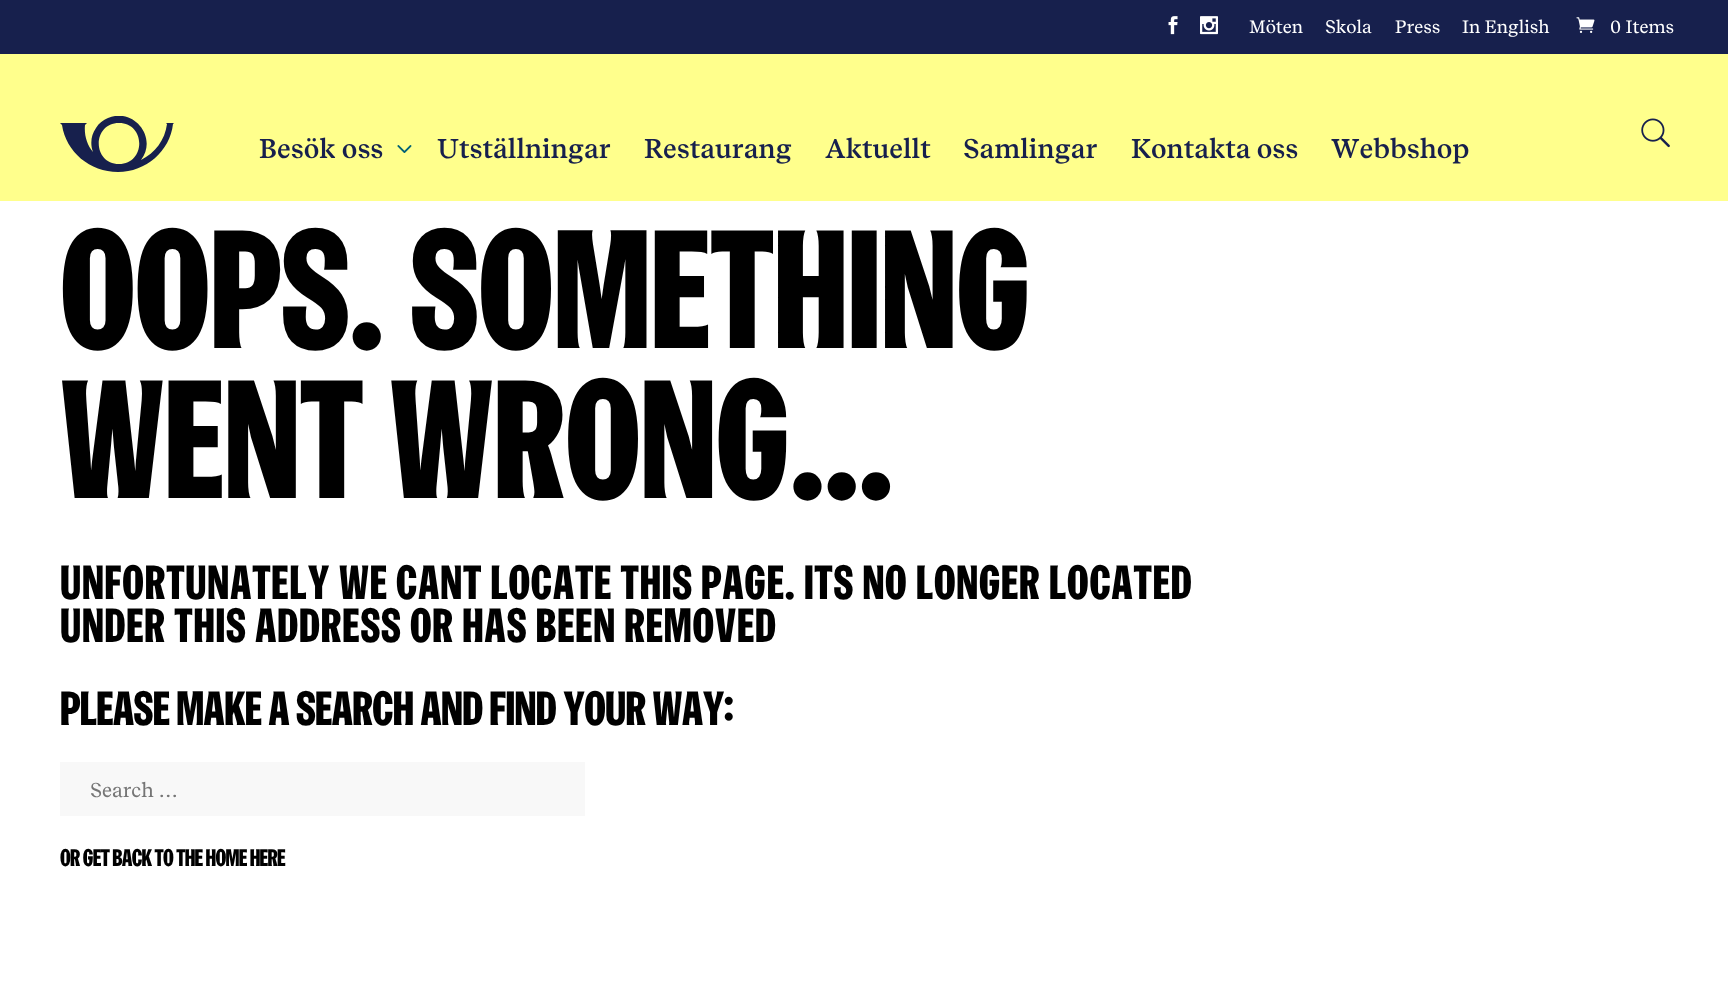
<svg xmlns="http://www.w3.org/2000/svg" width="1728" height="997">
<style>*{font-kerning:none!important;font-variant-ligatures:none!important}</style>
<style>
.a{font:18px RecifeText;fill:#fff}
.b{font:600 27px RecifeText;fill:#17204d}
.c{font:168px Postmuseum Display;letter-spacing:-0.75px;fill:#000}
.d{font:48px Postmuseum Display;letter-spacing:0.75px;fill:#000}
.e{font:48px Postmuseum Display;letter-spacing:-0.75px;fill:#000}
.f{font:20px RecifeText;fill:#757575}
.g{font:24px Postmuseum Display;letter-spacing:-0.75px;fill:#000}
</style>
<defs>
<clipPath id="clip1"><path d="M60 116h114v57H60z"/></clipPath>
</defs>
<rect width="100%" height="100%" fill="#fff"/>
<path fill="#17204d" d="M0 0h1728v54H0z"/>
<image href="1.png" x="1168" y="16" width="10" height="19"/>
<image href="2.png" x="1200" y="16" width="18" height="19"/>
<image href="3.png" x="1576" y="17" width="19" height="16"/>
<path fill="#ffff8c" d="M0 54h1728v147H0z"/>
<g clip-path="url(#clip1)">
<path fill="#17204d" d="M166 123l1 1c-2 16-12 29-26 36c17-22-7-53-33-42c-5 2-9 5-12 10c-5 7-6 16-3 24c-6-7-9-17-8-27l2-2h-27l2 2c4 27 28 47 56 47c28 0 52-21 55-48l1-1zm-47 0c27 0 27 41 0 41c-27 0-27-41 0-41z"/>
</g>
<image href="4.png" x="397" y="145" width="15" height="8"/>
<image href="5.png" x="1641" y="118" width="29" height="30"/>
<path fill="#f8f8f8" d="M60 762h525v54H60z"/>
<text class="a" x="1249" y="33">Möten</text>
<text class="a" x="1325" y="33">Skola</text>
<text class="a" x="1395" y="33">Press</text>
<text class="a" x="1462" y="33">In English</text>
<text class="a" x="1610" y="33">0 Items</text>
<text class="b" x="259" y="158">Besök oss</text>
<text class="b" x="437" y="158">Utställningar</text>
<text class="b" x="644" y="158">Restaurang</text>
<text class="b" x="825" y="158">Aktuellt</text>
<text class="b" x="963" y="158">Samlingar</text>
<text class="b" x="1131" y="158">Kontakta oss</text>
<text class="b" x="1331" y="158">Webbshop</text>
<text class="c" x="60" y="348">Oops. Something</text>
<text class="c" x="60" y="498">went wrong...</text>
<text class="d" x="60" y="599">Unfortunately</text>
<text class="d" x="339" y="599">we cant locate this</text>
<text class="d" x="701" y="599">page. Its no longer located</text>
<text class="d" x="60" y="642">under this address or has been removed</text>
<text class="e" x="60" y="725">Please make a search and find your way:</text>
<text class="f" x="90" y="797">Search …</text>
<text class="g" x="60" y="866">Or get back to the home here</text>
</svg>
